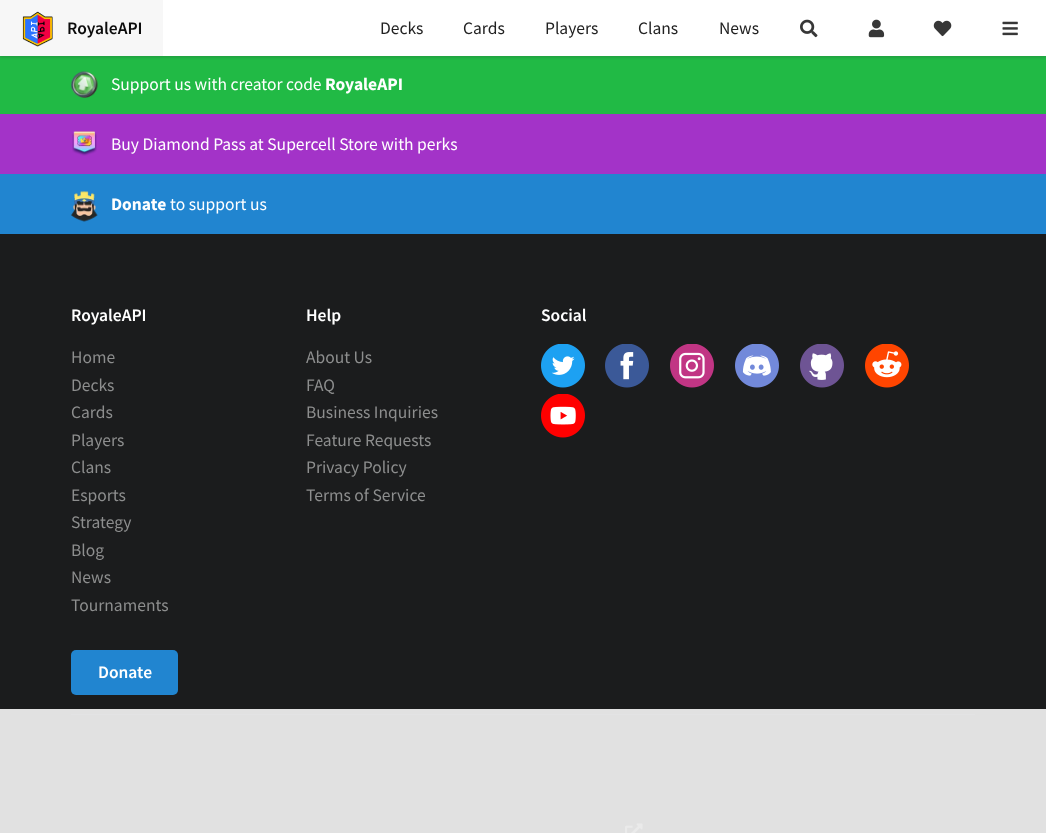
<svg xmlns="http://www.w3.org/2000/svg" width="1046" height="833">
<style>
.a{font:600 17.5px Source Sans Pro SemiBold;fill:#0c0c0c}
.b{font:17.5px Source Sans Pro;fill:#212121}
.c{font:17.5px Source Sans Pro;fill:#fff}
.d{font:bold 17.5px Source Sans Pro;fill:#fff}
.e{font:600 17.5px Source Sans Pro SemiBold;fill:#fff}
.f{font:17.5px Source Sans Pro;fill:#8d8e8e}
</style>
<rect width="100%" height="100%" fill="#21ba45"/>
<path fill="#22242626" filter="blur(1px)" d="M0 1h1046v57H0z"/>
<path fill="#fff" d="M163 0h883v56H163z"/>
<path fill="#f7f7f7" d="M0 0h163v56H0z"/>
<image href="1.png" x="22" y="11" width="31" height="36"/>
<image href="2.png" x="800" y="19" width="18" height="19"/>
<image href="3.png" x="868" y="19" width="17" height="19"/>
<image href="4.png" x="933" y="20" width="19" height="17"/>
<image href="5.png" x="1002" y="21" width="16" height="15"/>
<image href="6.png" x="71" y="71" width="27" height="27"/>
<path fill="#a333c8" d="M0 114h1046v60H0z"/>
<image href="7.png" x="72" y="131" width="25" height="25"/>
<path fill="#2185d0" d="M0 174h1046v60H0z"/>
<image href="8.png" x="71" y="191" width="27" height="31"/>
<path fill="#1b1c1d" d="M0 234h1046v475H0z"/>
<path fill="#e1e1e1" d="M0 709h1046v124H0z"/>
<image href="9.png" x="541" y="344" width="44" height="44"/>
<image href="10.png" x="605" y="344" width="44" height="44"/>
<image href="11.png" x="670" y="344" width="44" height="44"/>
<image href="12.png" x="735" y="344" width="44" height="44"/>
<image href="13.png" x="800" y="344" width="44" height="44"/>
<image href="14.png" x="865" y="344" width="44" height="44"/>
<image href="15.png" x="541" y="394" width="44" height="44"/>
<rect fill="#2185d0" x="71" y="650" width="107" height="45" rx="5"/>
<path fill="#e3e3e4" d="M71 714h904v1H71z"/>
<image href="16.png" x="625" y="823" width="18" height="10"/>
<text class="a" x="67" y="34">RoyaleAPI</text>
<text class="b" x="380" y="34">Decks</text>
<text class="b" x="463" y="34">Cards</text>
<text class="b" x="545" y="34">Players</text>
<text class="b" x="638" y="34">Clans</text>
<text class="b" x="719" y="34">News</text>
<text class="c" x="111" y="90">Support us with creator code</text>
<text class="d" x="325" y="90">RoyaleAPI</text>
<text class="c" x="111" y="150">Buy Diamond Pass at Supercell Store with perks</text>
<text class="d" x="111" y="210">Donate</text>
<text class="c" x="170" y="210">to support us</text>
<text class="e" x="71" y="321">RoyaleAPI</text>
<text class="f" x="71" y="363">Home</text>
<text class="f" x="71" y="391">Decks</text>
<text class="f" x="71" y="418">Cards</text>
<text class="f" x="71" y="446">Players</text>
<text class="f" x="71" y="473">Clans</text>
<text class="f" x="71" y="501">Esports</text>
<text class="f" x="71" y="528">Strategy</text>
<text class="f" x="71" y="556">Blog</text>
<text class="f" x="71" y="583">News</text>
<text class="f" x="71" y="611">Tournaments</text>
<text class="e" x="306" y="321">Help</text>
<text class="f" x="306" y="363">About Us</text>
<text class="f" x="306" y="391">FAQ</text>
<text class="f" x="306" y="418">Business Inquiries</text>
<text class="f" x="306" y="446">Feature Requests</text>
<text class="f" x="306" y="473">Privacy Policy</text>
<text class="f" x="306" y="501">Terms of Service</text>
<text class="e" x="541" y="321">Social</text>
<text class="e" x="98" y="678">Donate</text>
</svg>
